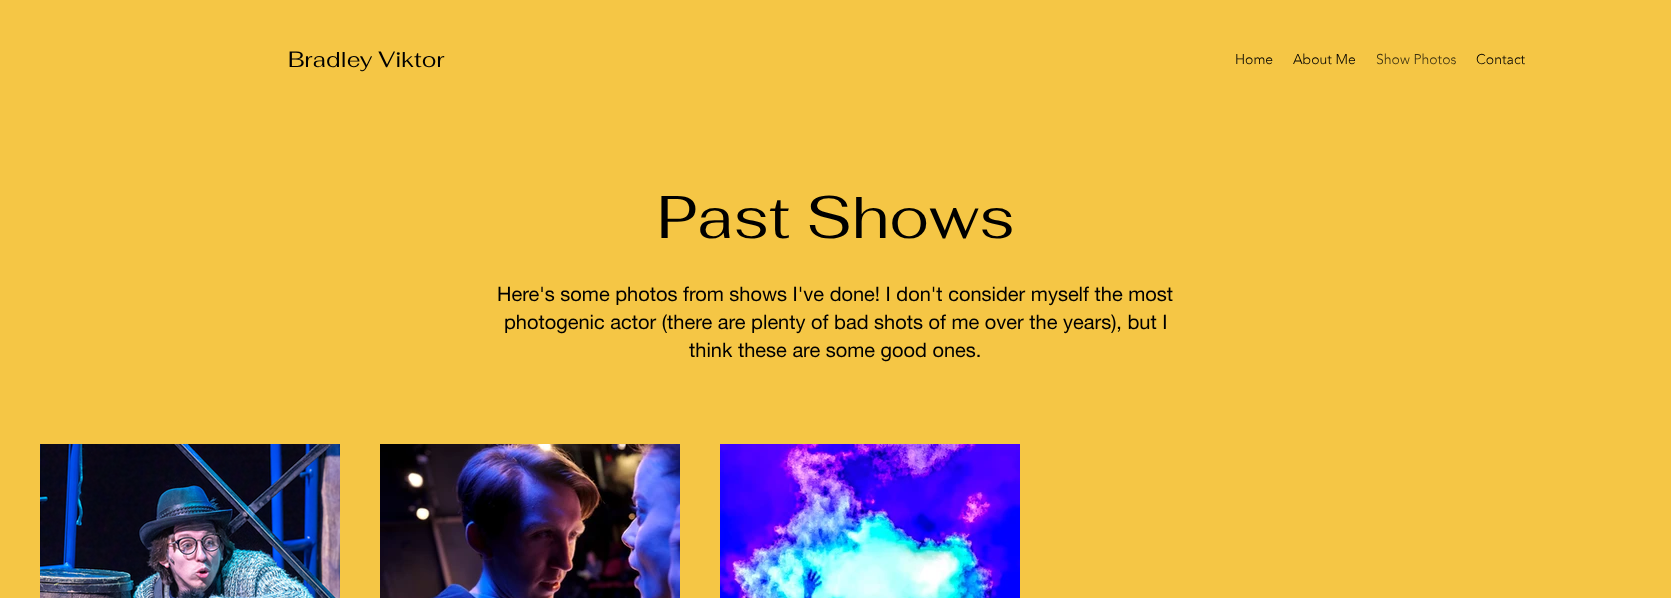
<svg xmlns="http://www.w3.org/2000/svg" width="1671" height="598">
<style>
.a{font:22px Fahkwang;fill:#000}
.b{font:300 14px 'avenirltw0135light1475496';fill:#000}
.c{font:300 14px 'avenirltw0135light1475496';fill:#3d3211}
.d{font:60px Fahkwang;fill:#000}
.e{font:20px helvetica neue;fill:#000}
</style>
<rect width="100%" height="100%" fill="#f5c645"/>
<image href="1.png" x="40" y="444" width="300" height="154"/>
<image href="2.png" x="380" y="444" width="300" height="154"/>
<image href="3.png" x="720" y="444" width="300" height="154"/>
<text class="a" x="288" y="67">Bradley Viktor</text>
<text class="b" x="1235" y="64">Home</text>
<text class="b" x="1293" y="64">About Me</text>
<text class="c" x="1376" y="64">Show Photos</text>
<text class="b" x="1476" y="64">Contact</text>
<text class="d" x="657" y="238">Past Shows</text>
<text class="e" x="497" y="301">Here's some photos from shows I've done! I don't consider myself the most</text>
<text class="e" x="504" y="329">photogenic actor (there are plenty of bad shots of me over the years), but I</text>
<text class="e" x="689" y="357">think these are some good ones.</text>
</svg>
